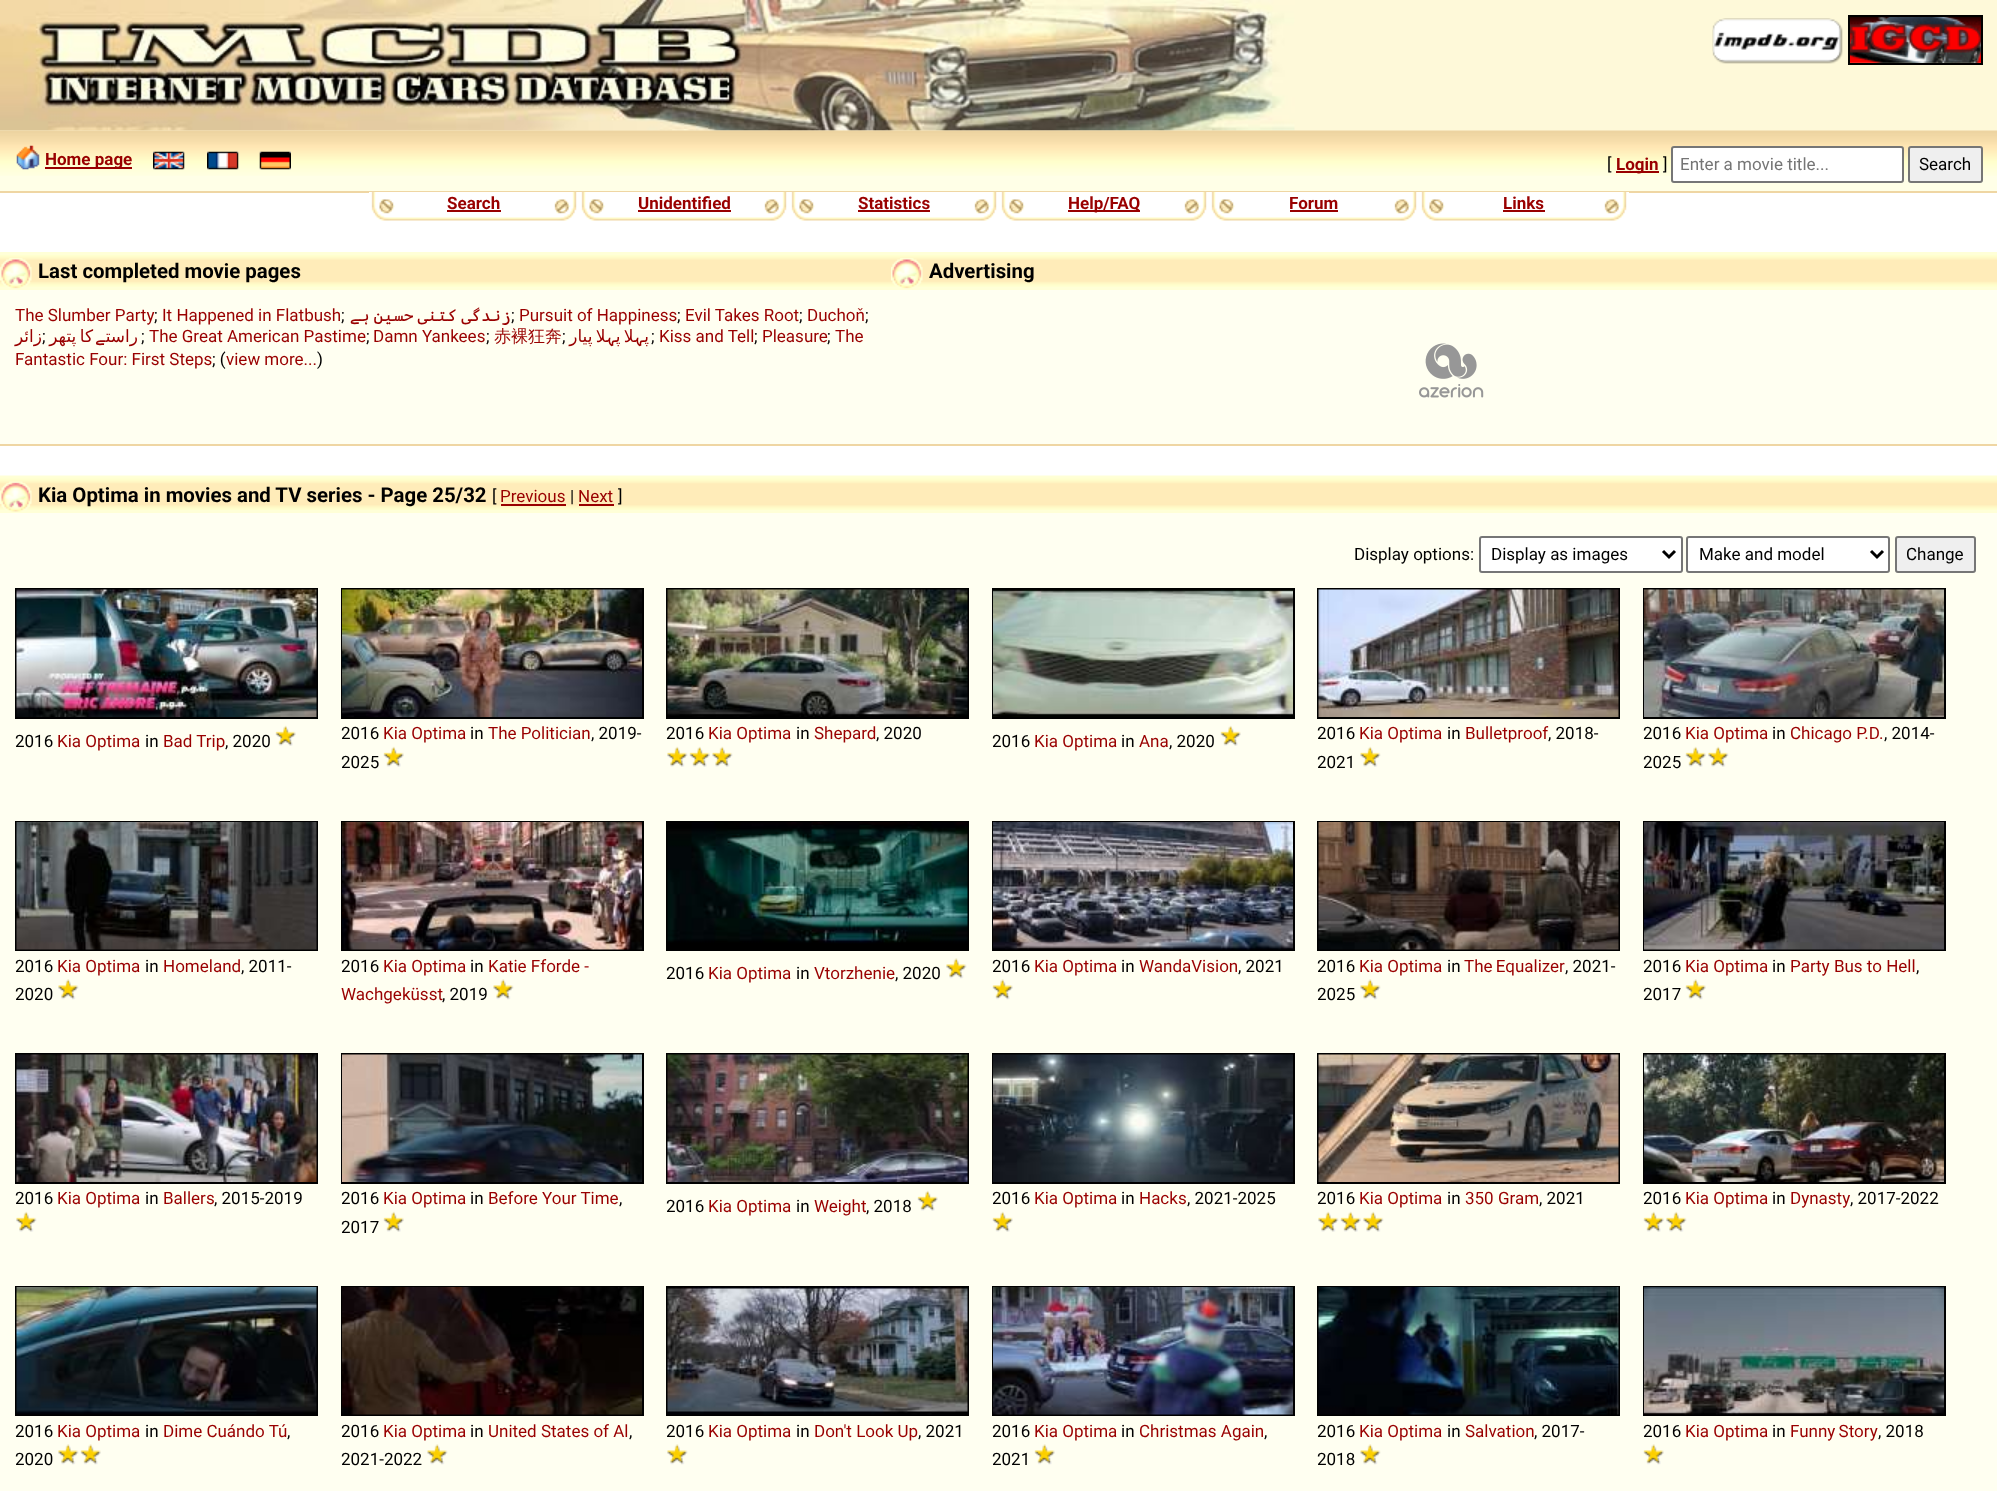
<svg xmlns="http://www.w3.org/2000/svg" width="1997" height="1491">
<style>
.a{font:bold 17px Roboto;fill:#900}
.b{font:17px Roboto;fill:#000}
.c{font:17px Roboto;fill:#757575}
.d{font:bold 20.4px Roboto;fill:#000}
.e{font:17px Roboto;fill:#900}
.f{font:17px Cascadia Code;direction:rtl;fill:#900}
.g{font:17px DejaVu Sans;direction:rtl;fill:#900}
.h{font:500 17px WenQuanYi Zen Hei;fill:#900}
</style>
<rect width="100%" height="100%" fill="#fff"/>
<path fill="#fef9d9" d="M0 0h1997v131H0z"/>
<image href="1.png" x="0" y="0" width="1295" height="131"/>
<image href="3.png" x="1850" y="17" width="131" height="46"/>
<path fill="none" stroke="#000" stroke-width="2" d="M1849 16h133v48H1849z"/>
<image href="2.png" x="1712" y="18" width="131" height="46"/>
<path fill="#ffffe7" d="M0 176h1997v15H0z"/>
<image href="4.png" x="0" y="130" width="1997" height="46"/>
<path fill="#efd6a3" d="M0 191h1997v2H0z"/>
<image href="5.png" x="16" y="145" width="24" height="25"/>
<path fill="#900" d="M45 167h87v2H45z"/>
<image href="6.png" x="153" y="151" width="32" height="19"/>
<image href="7.png" x="207" y="151" width="32" height="19"/>
<image href="8.png" x="259" y="151" width="32" height="19"/>
<path fill="#900" d="M1616 171h43v2H1616z"/>
<rect fill="#fff" stroke="#767676" stroke-width="2" x="1672" y="147" width="231" height="35" rx="2"/>
<rect fill="#efefef" stroke="#767676" stroke-width="2" x="1909" y="147" width="73" height="35" rx="2"/>
<image href="9.png" x="369" y="192" width="210" height="29"/>
<path fill="#900" d="M447 210h54v2H447z"/>
<image href="9.png" x="579" y="192" width="210" height="29"/>
<path fill="#900" d="M638 210h93v2H638z"/>
<image href="10.png" x="789" y="192" width="210" height="29"/>
<path fill="#900" d="M858 210h72v2H858z"/>
<image href="10.png" x="999" y="192" width="210" height="29"/>
<path fill="#900" d="M1068 210h72v2H1068z"/>
<image href="9.png" x="1209" y="192" width="210" height="29"/>
<path fill="#900" d="M1290 210h48v2H1290z"/>
<image href="10.png" x="1419" y="192" width="210" height="29"/>
<path fill="#900" d="M1503 210h42v2H1503z"/>
<path fill="#fffff1" d="M0 290h1997v154H0z"/>
<path fill="#efd6a3" d="M0 444h1997v2H0z"/>
<path fill="#ffffd7" d="M0 252h1997v38H0z"/>
<image href="11.png" x="0" y="255" width="891" height="32"/>
<image href="12.png" x="0" y="258" width="32" height="31"/>
<image href="13.png" x="891" y="255" width="1106" height="32"/>
<image href="12.png" x="891" y="258" width="32" height="31"/>
<image href="14.png" x="1419" y="343" width="65" height="55"/>
<path fill="#fffff1" d="M0 513h1997v978H0z"/>
<path fill="#ffffd7" d="M0 510h1997v3H0z"/>
<image href="15.png" x="0" y="475" width="1997" height="35"/>
<image href="16.png" x="0" y="481" width="32" height="31"/>
<path fill="#900" d="M501 504h65v2H501z"/>
<path fill="#900" d="M579 504h35v2H579z"/>
<rect fill="#fff" stroke="#767676" stroke-width="2" x="1480" y="537" width="202" height="35" rx="2"/>
<path fill="none" stroke="#000" stroke-width="3" d="M1663 551l6 6l6-6"/>
<rect fill="#fff" stroke="#767676" stroke-width="2" x="1687" y="537" width="202" height="35" rx="2"/>
<path fill="none" stroke="#000" stroke-width="3" d="M1871 551l6 6l6-6"/>
<rect fill="#efefef" stroke="#767676" stroke-width="2" x="1896" y="537" width="79" height="35" rx="2"/>
<path fill="none" stroke="#000" stroke-width="2" d="M16 589h301v129H16z"/>
<image href="17.png" x="16" y="589" width="301" height="128"/>
<image href="18.png" x="275" y="725" width="21" height="21"/>
<path fill="none" stroke="#000" stroke-width="2" d="M342 589h301v129H342z"/>
<image href="19.png" x="342" y="589" width="300" height="128"/>
<image href="20.png" x="383" y="746" width="21" height="21"/>
<path fill="none" stroke="#000" stroke-width="2" d="M667 589h301v129H667z"/>
<image href="21.png" x="667" y="589" width="301" height="128"/>
<image href="22.png" x="667" y="746" width="21" height="21"/>
<image href="20.png" x="689" y="746" width="21" height="21"/>
<image href="23.png" x="712" y="746" width="21" height="21"/>
<path fill="none" stroke="#000" stroke-width="2" d="M993 589h301v129H993z"/>
<image href="24.png" x="993" y="589" width="300" height="128"/>
<image href="18.png" x="1220" y="725" width="21" height="21"/>
<path fill="none" stroke="#000" stroke-width="2" d="M1318 589h301v129H1318z"/>
<image href="25.png" x="1318" y="589" width="301" height="128"/>
<image href="23.png" x="1360" y="746" width="21" height="21"/>
<path fill="none" stroke="#000" stroke-width="2" d="M1644 589h301v129H1644z"/>
<image href="26.png" x="1644" y="589" width="300" height="128"/>
<image href="18.png" x="1685" y="746" width="21" height="21"/>
<image href="22.png" x="1708" y="746" width="21" height="21"/>
<path fill="none" stroke="#000" stroke-width="2" d="M16 822h301v128H16z"/>
<image href="27.png" x="16" y="822" width="301" height="128"/>
<image href="28.png" x="58" y="979" width="21" height="21"/>
<path fill="none" stroke="#000" stroke-width="2" d="M342 822h301v128H342z"/>
<image href="29.png" x="342" y="822" width="300" height="128"/>
<image href="30.png" x="493" y="979" width="21" height="21"/>
<path fill="none" stroke="#000" stroke-width="2" d="M667 822h301v128H667z"/>
<image href="31.png" x="667" y="822" width="301" height="127"/>
<image href="28.png" x="946" y="958" width="21" height="21"/>
<path fill="none" stroke="#000" stroke-width="2" d="M993 822h301v128H993z"/>
<image href="32.png" x="993" y="822" width="300" height="128"/>
<image href="33.png" x="992" y="979" width="21" height="21"/>
<path fill="none" stroke="#000" stroke-width="2" d="M1318 822h301v128H1318z"/>
<image href="34.png" x="1318" y="822" width="301" height="128"/>
<image href="35.png" x="1360" y="979" width="21" height="21"/>
<path fill="none" stroke="#000" stroke-width="2" d="M1644 822h301v128H1644z"/>
<image href="36.png" x="1644" y="822" width="300" height="128"/>
<image href="33.png" x="1685" y="979" width="21" height="21"/>
<path fill="none" stroke="#000" stroke-width="2" d="M16 1054h301v129H16z"/>
<image href="37.png" x="16" y="1054" width="301" height="128"/>
<image href="22.png" x="16" y="1211" width="21" height="21"/>
<path fill="none" stroke="#000" stroke-width="2" d="M342 1054h301v129H342z"/>
<image href="38.png" x="342" y="1054" width="300" height="128"/>
<image href="20.png" x="383" y="1211" width="21" height="21"/>
<path fill="none" stroke="#000" stroke-width="2" d="M667 1054h301v129H667z"/>
<image href="39.png" x="667" y="1054" width="301" height="128"/>
<image href="18.png" x="917" y="1190" width="21" height="21"/>
<path fill="none" stroke="#000" stroke-width="2" d="M993 1054h301v129H993z"/>
<image href="40.png" x="993" y="1054" width="300" height="128"/>
<image href="18.png" x="992" y="1211" width="21" height="21"/>
<path fill="none" stroke="#000" stroke-width="2" d="M1318 1054h301v129H1318z"/>
<image href="41.png" x="1318" y="1054" width="301" height="128"/>
<image href="22.png" x="1318" y="1211" width="21" height="21"/>
<image href="20.png" x="1340" y="1211" width="21" height="21"/>
<image href="23.png" x="1363" y="1211" width="21" height="21"/>
<path fill="none" stroke="#000" stroke-width="2" d="M1644 1054h301v129H1644z"/>
<image href="42.png" x="1644" y="1054" width="300" height="128"/>
<image href="18.png" x="1643" y="1211" width="21" height="21"/>
<image href="22.png" x="1666" y="1211" width="21" height="21"/>
<path fill="none" stroke="#000" stroke-width="2" d="M16 1287h301v128H16z"/>
<image href="43.png" x="16" y="1287" width="301" height="128"/>
<image href="28.png" x="58" y="1444" width="21" height="21"/>
<image href="33.png" x="80" y="1444" width="21" height="21"/>
<path fill="none" stroke="#000" stroke-width="2" d="M342 1287h301v128H342z"/>
<image href="44.png" x="342" y="1287" width="300" height="128"/>
<image href="35.png" x="427" y="1444" width="21" height="21"/>
<path fill="none" stroke="#000" stroke-width="2" d="M667 1287h301v128H667z"/>
<image href="45.png" x="667" y="1287" width="301" height="128"/>
<image href="28.png" x="667" y="1444" width="21" height="21"/>
<path fill="none" stroke="#000" stroke-width="2" d="M993 1287h301v128H993z"/>
<image href="46.png" x="993" y="1287" width="300" height="128"/>
<image href="33.png" x="1034" y="1444" width="21" height="21"/>
<path fill="none" stroke="#000" stroke-width="2" d="M1318 1287h301v128H1318z"/>
<image href="47.png" x="1318" y="1287" width="301" height="128"/>
<image href="35.png" x="1360" y="1444" width="21" height="21"/>
<path fill="none" stroke="#000" stroke-width="2" d="M1644 1287h301v128H1644z"/>
<image href="48.png" x="1644" y="1287" width="300" height="128"/>
<image href="33.png" x="1643" y="1444" width="21" height="21"/>
<text class="a" x="45" y="165">Home page</text>
<text class="b" x="1607" y="170">[</text>
<text class="a" x="1616" y="170">Login</text>
<text class="b" x="1663" y="170">]</text>
<text class="c" x="1680" y="170">Enter a movie title...</text>
<text class="b" x="1919" y="170">Search</text>
<text class="a" x="447" y="209">Search</text>
<text class="a" x="638" y="209">Unidentified</text>
<text class="a" x="858" y="209">Statistics</text>
<text class="a" x="1068" y="209">Help/FAQ</text>
<text class="a" x="1289" y="209">Forum</text>
<text class="a" x="1503" y="209">Links</text>
<text class="d" x="38" y="278">Last completed movie pages</text>
<text class="e" x="15" y="321">The Slumber Party</text>
<text class="b" x="154" y="321">;</text>
<text class="e" x="162" y="321">It Happened in Flatbush</text>
<text class="b" x="341" y="321">;</text>
<text class="f" x="511" y="321" word-spacing="-6">زندگی کتنی حسین ہے</text>
<text class="e" x="519" y="321">Pursuit of Happiness</text>
<text class="e" x="685" y="321">Evil Takes Root</text>
<text class="e" x="807" y="321">Duchoň</text>
<text class="b" x="511" y="321">;</text>
<text class="b" x="677" y="321">;</text>
<text class="b" x="799" y="321">;</text>
<text class="b" x="865" y="321">;</text>
<text class="g" x="42" y="342">زائر</text>
<text class="b" x="42" y="342">;</text>
<text class="g" x="93" y="342" word-spacing="-2">کا پتھر</text>
<text class="f" x="105" y="342">‍ے</text>
<text class="g" x="138" y="342">راست‍</text>
<text class="b" x="141" y="342">;</text>
<text class="e" x="149" y="342">The Great American Pastime</text>
<text class="b" x="366" y="342">;</text>
<text class="e" x="373" y="342">Damn Yankees</text>
<text class="b" x="486" y="342">;</text>
<text class="h" x="494" y="342">赤裸狂奔</text>
<text class="b" x="562" y="342">;</text>
<text class="g" x="606" y="342" word-spacing="-2">‍لا پیار</text>
<text class="f" x="616" y="342">‍ہ‍</text>
<text class="g" x="634" y="342" word-spacing="-2">‍لا پ‍</text>
<text class="f" x="644" y="342">‍ہ‍</text>
<text class="g" x="649" y="342">پ‍</text>
<text class="b" x="651" y="342">;</text>
<text class="e" x="659" y="342">Kiss and Tell</text>
<text class="b" x="754" y="342">;</text>
<text class="e" x="762" y="342">Pleasure</text>
<text class="b" x="827" y="342">;</text>
<text class="e" x="835" y="342">The</text>
<text class="e" x="15" y="365">Fantastic Four: First Steps</text>
<text class="b" x="212" y="365">; (</text>
<text class="e" x="226" y="365">view more...</text>
<text class="b" x="317" y="365">)</text>
<text class="d" x="929" y="278">Advertising</text>
<text class="d" x="38" y="502">Kia Optima in movies and TV series - Page 25/32</text>
<text class="b" x="492" y="502">[</text>
<text class="e" x="500" y="502">Previous</text>
<text class="b" x="570" y="502">|</text>
<text class="e" x="578" y="502">Next</text>
<text class="b" x="618" y="502">]</text>
<text class="b" x="1354" y="560">Display options:</text>
<text class="b" x="1491" y="560">Display as images</text>
<text class="b" x="1699" y="560">Make and model</text>
<text class="b" x="1906" y="560">Change</text>
<text class="b" x="15" y="747">2016</text>
<text class="e" x="57" y="747">Kia Optima</text>
<text class="b" x="145" y="747">in</text>
<text class="e" x="163" y="747">Bad Trip</text>
<text class="b" x="225" y="747">, 2020</text>
<text class="b" x="341" y="739">2016</text>
<text class="e" x="383" y="739">Kia Optima</text>
<text class="b" x="470" y="739">in</text>
<text class="e" x="488" y="739">The Politician</text>
<text class="b" x="591" y="739">, 2019-</text>
<text class="b" x="341" y="768">2025</text>
<text class="b" x="666" y="739">2016</text>
<text class="e" x="708" y="739">Kia Optima</text>
<text class="b" x="796" y="739">in</text>
<text class="e" x="814" y="739">Shepard</text>
<text class="b" x="876" y="739">, 2020</text>
<text class="b" x="992" y="747">2016</text>
<text class="e" x="1034" y="747">Kia Optima</text>
<text class="b" x="1121" y="747">in</text>
<text class="e" x="1139" y="747">Ana</text>
<text class="b" x="1169" y="747">, 2020</text>
<text class="b" x="1317" y="739">2016</text>
<text class="e" x="1359" y="739">Kia Optima</text>
<text class="b" x="1447" y="739">in</text>
<text class="e" x="1465" y="739">Bulletproof</text>
<text class="b" x="1548" y="739">, 2018-</text>
<text class="b" x="1317" y="768">2021</text>
<text class="b" x="1643" y="739">2016</text>
<text class="e" x="1685" y="739">Kia Optima</text>
<text class="b" x="1772" y="739">in</text>
<text class="e" x="1790" y="739">Chicago P.D.</text>
<text class="b" x="1884" y="739">, 2014-</text>
<text class="b" x="1643" y="768">2025</text>
<text class="b" x="15" y="972">2016</text>
<text class="e" x="57" y="972">Kia Optima</text>
<text class="b" x="145" y="972">in</text>
<text class="e" x="163" y="972">Homeland</text>
<text class="b" x="241" y="972">, 2011-</text>
<text class="b" x="15" y="1000">2020</text>
<text class="b" x="341" y="972">2016</text>
<text class="e" x="383" y="972">Kia Optima</text>
<text class="b" x="470" y="972">in</text>
<text class="e" x="488" y="972">Katie Fforde -</text>
<text class="e" x="341" y="1000">Wachgeküsst</text>
<text class="b" x="442" y="1000">, 2019</text>
<text class="b" x="666" y="979">2016</text>
<text class="e" x="708" y="979">Kia Optima</text>
<text class="b" x="796" y="979">in</text>
<text class="e" x="814" y="979">Vtorzhenie</text>
<text class="b" x="895" y="979">, 2020</text>
<text class="b" x="992" y="972">2016</text>
<text class="e" x="1034" y="972">Kia Optima</text>
<text class="b" x="1121" y="972">in</text>
<text class="e" x="1139" y="972">WandaVision</text>
<text class="b" x="1238" y="972">, 2021</text>
<text class="b" x="1317" y="972">2016</text>
<text class="e" x="1359" y="972">Kia Optima</text>
<text class="b" x="1447" y="972">in</text>
<text class="e" x="1464" y="972" word-spacing="-1">The Equalizer</text>
<text class="b" x="1565" y="972">, 2021-</text>
<text class="b" x="1317" y="1000">2025</text>
<text class="b" x="1643" y="972">2016</text>
<text class="e" x="1685" y="972">Kia Optima</text>
<text class="b" x="1772" y="972">in</text>
<text class="e" x="1790" y="972">Party Bus to Hell</text>
<text class="b" x="1916" y="972">,</text>
<text class="b" x="1643" y="1000">2017</text>
<text class="b" x="15" y="1204">2016</text>
<text class="e" x="57" y="1204">Kia Optima</text>
<text class="b" x="145" y="1204">in</text>
<text class="e" x="163" y="1204">Ballers</text>
<text class="b" x="214" y="1204">, 2015-2019</text>
<text class="b" x="341" y="1204">2016</text>
<text class="e" x="383" y="1204">Kia Optima</text>
<text class="b" x="470" y="1204">in</text>
<text class="e" x="488" y="1204">Before Your Time</text>
<text class="b" x="619" y="1204">,</text>
<text class="b" x="341" y="1233">2017</text>
<text class="b" x="666" y="1212">2016</text>
<text class="e" x="708" y="1212">Kia Optima</text>
<text class="b" x="796" y="1212">in</text>
<text class="e" x="814" y="1212">Weight</text>
<text class="b" x="866" y="1212">, 2018</text>
<text class="b" x="992" y="1204">2016</text>
<text class="e" x="1034" y="1204">Kia Optima</text>
<text class="b" x="1121" y="1204">in</text>
<text class="e" x="1139" y="1204">Hacks</text>
<text class="b" x="1187" y="1204">, 2021-2025</text>
<text class="b" x="1317" y="1204">2016</text>
<text class="e" x="1359" y="1204">Kia Optima</text>
<text class="b" x="1447" y="1204">in</text>
<text class="e" x="1465" y="1204">350 Gram</text>
<text class="b" x="1539" y="1204">, 2021</text>
<text class="b" x="1643" y="1204">2016</text>
<text class="e" x="1685" y="1204">Kia Optima</text>
<text class="b" x="1772" y="1204">in</text>
<text class="e" x="1790" y="1204">Dynasty</text>
<text class="b" x="1850" y="1204">, 2017-2022</text>
<text class="b" x="15" y="1437">2016</text>
<text class="e" x="57" y="1437">Kia Optima</text>
<text class="b" x="145" y="1437">in</text>
<text class="e" x="163" y="1437">Dime Cuándo Tú</text>
<text class="b" x="287" y="1437">,</text>
<text class="b" x="15" y="1465">2020</text>
<text class="b" x="341" y="1437">2016</text>
<text class="e" x="383" y="1437">Kia Optima</text>
<text class="b" x="470" y="1437">in</text>
<text class="e" x="488" y="1437">United States of Al</text>
<text class="b" x="629" y="1437">,</text>
<text class="b" x="341" y="1465">2021-2022</text>
<text class="b" x="666" y="1437">2016</text>
<text class="e" x="708" y="1437">Kia Optima</text>
<text class="b" x="796" y="1437">in</text>
<text class="e" x="814" y="1437">Don't Look Up</text>
<text class="b" x="918" y="1437">, 2021</text>
<text class="b" x="992" y="1437">2016</text>
<text class="e" x="1034" y="1437">Kia Optima</text>
<text class="b" x="1121" y="1437">in</text>
<text class="e" x="1139" y="1437">Christmas Again</text>
<text class="b" x="1264" y="1437">,</text>
<text class="b" x="992" y="1465">2021</text>
<text class="b" x="1317" y="1437">2016</text>
<text class="e" x="1359" y="1437">Kia Optima</text>
<text class="b" x="1447" y="1437">in</text>
<text class="e" x="1465" y="1437">Salvation</text>
<text class="b" x="1534" y="1437">, 2017-</text>
<text class="b" x="1317" y="1465">2018</text>
<text class="b" x="1643" y="1437">2016</text>
<text class="e" x="1685" y="1437">Kia Optima</text>
<text class="b" x="1772" y="1437">in</text>
<text class="e" x="1790" y="1437" word-spacing="-1">Funny Story</text>
<text class="b" x="1878" y="1437">, 2018</text>
</svg>
